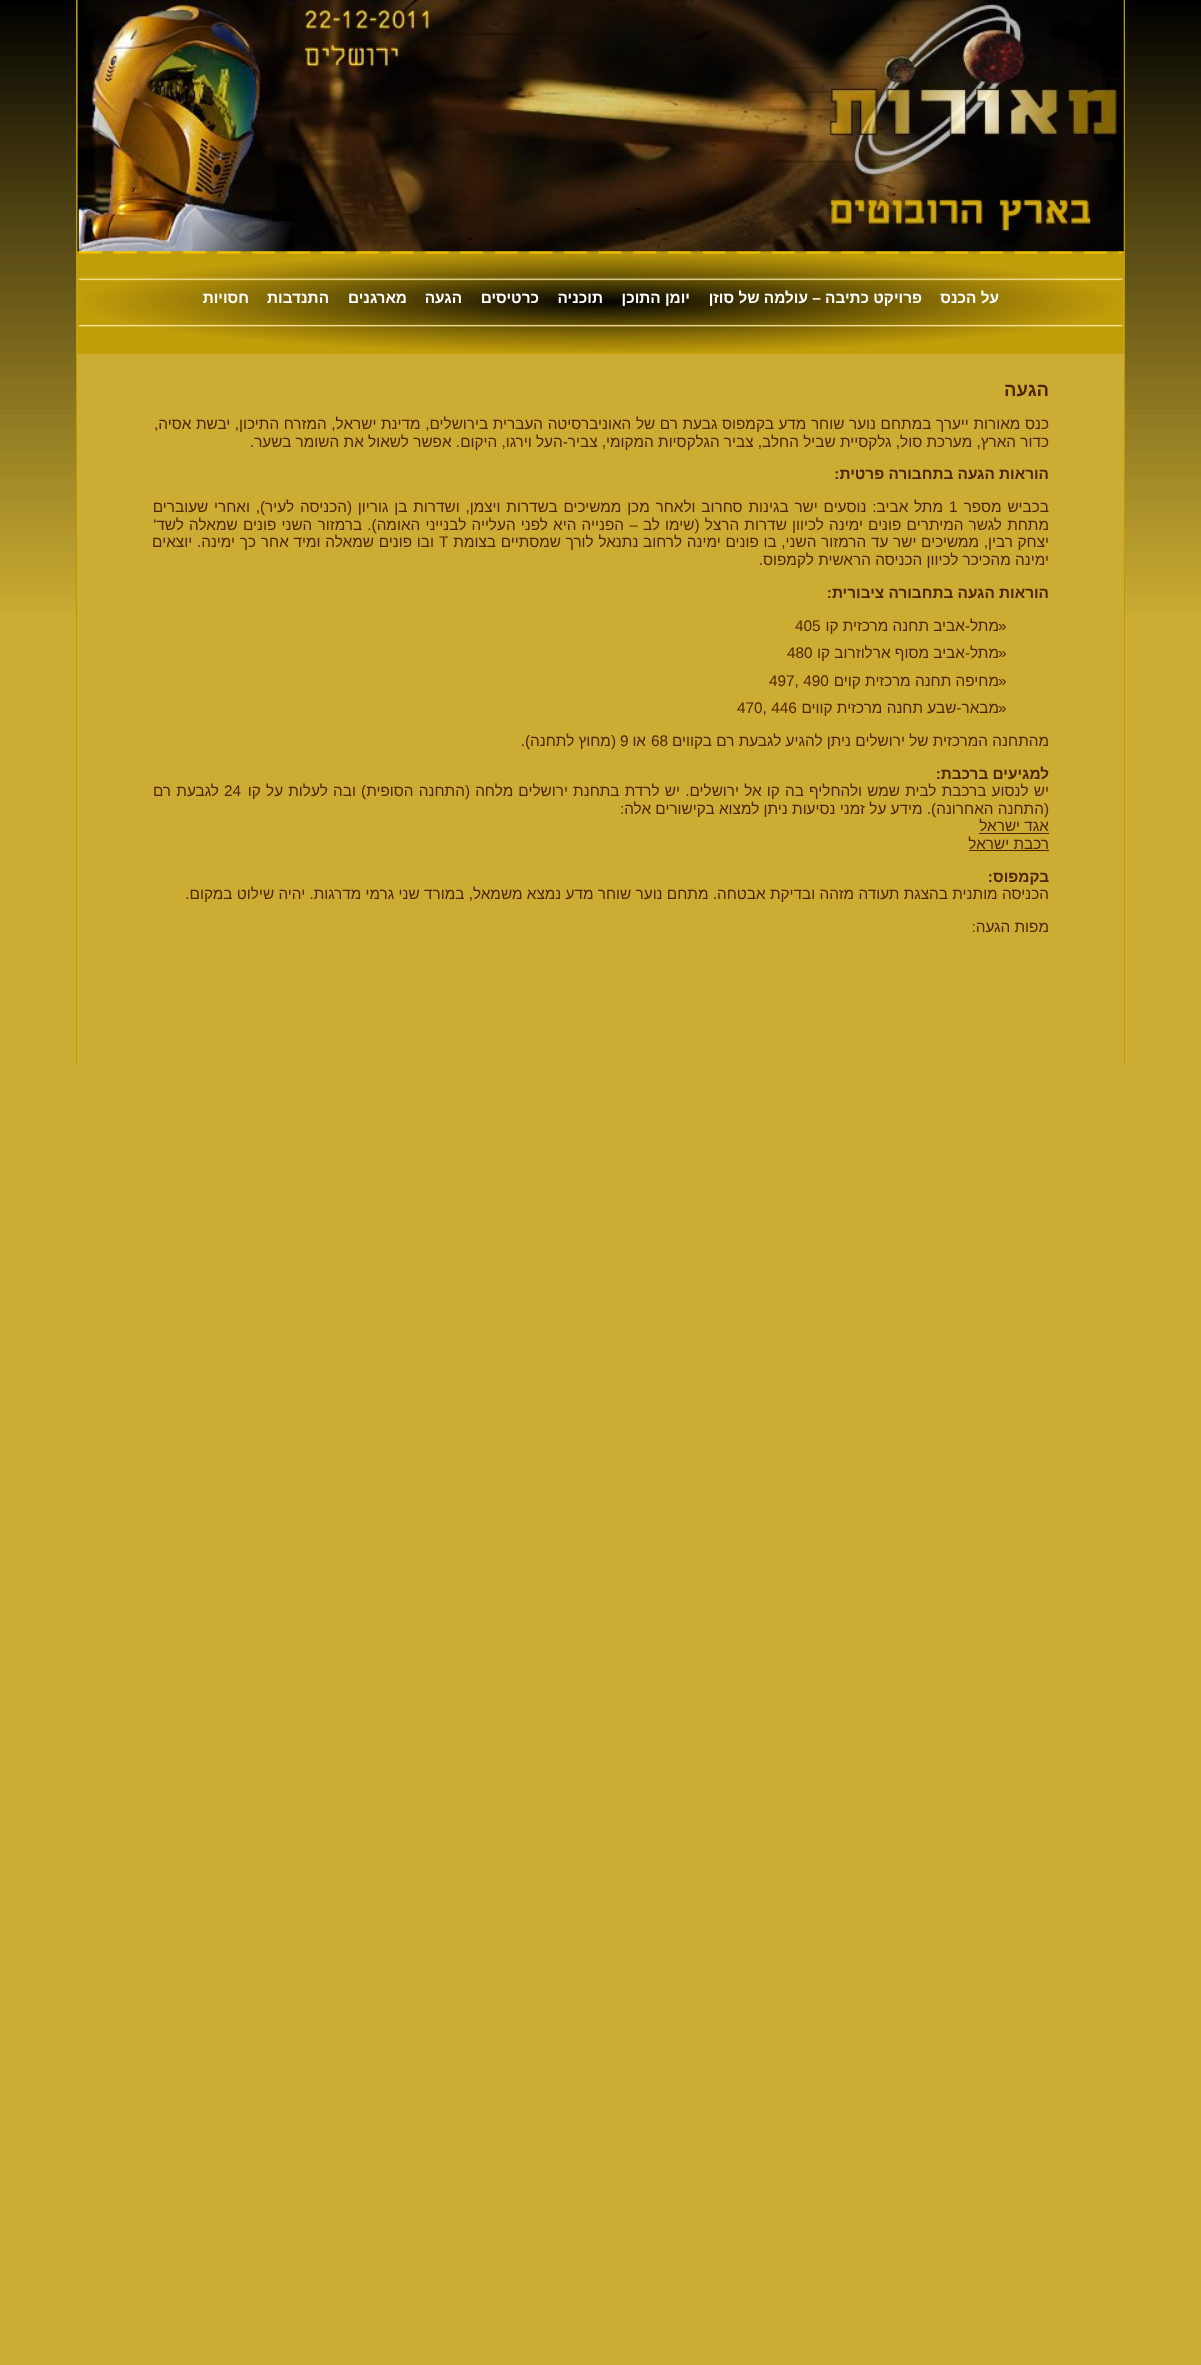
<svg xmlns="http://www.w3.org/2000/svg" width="1201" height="2365">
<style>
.a{font:bold 15.35px Liberation Sans;direction:rtl;fill:#fff}
.b{font:bold 18.5px Liberation Sans;direction:rtl;fill:#520}
.c{font:15.35px Liberation Sans;direction:rtl;fill:#520}
.d{font:bold 15.35px Liberation Sans;direction:rtl;fill:#520}
.e{font:15.35px Liberation Sans;fill:#520}
</style>
<rect width="100%" height="100%" fill="#cbad33"/>
<image href="1.png" x="0" y="0" width="1201" height="610"/>
<path fill="#cbad33" d="M77 0h1047v610H77z"/>
<path fill="#bf9900" d="M1124 0h1v1064H1124z"/>
<path fill="#bf9900" d="M76 0h1v1064H76z"/>
<image href="3.png" x="77" y="250" width="1047" height="104"/>
<image href="2.png" x="77" y="0" width="1047" height="252"/>
<path fill="#520" d="M979 833h70v1H979z"/>
<path fill="#520" d="M969 850h80v1H969z"/>
<text class="a" x="999" y="303">על הכנס</text>
<text class="a" x="922" y="303">פרויקט כתיבה – עולמה של סוזן</text>
<text class="a" x="690" y="303">יומן התוכן</text>
<text class="a" x="603" y="303">תוכניה</text>
<text class="a" x="539" y="303">כרטיסים</text>
<text class="a" x="462" y="303">הגעה</text>
<text class="a" x="407" y="303">מארגנים</text>
<text class="a" x="329" y="303">התנדבות</text>
<text class="a" x="249" y="303">חסויות</text>
<text class="b" x="1049" y="396">הגעה</text>
<text class="c" x="1049" y="429" word-spacing="0.3">כנס מאורות ייערך במתחם נוער שוחר מדע בקמפוס גבעת רם של האוניברסיטה העברית בירושלים, מדינת ישראל, המזרח התיכון, יבשת אסיה,</text>
<text class="c" x="1049" y="447">כדור הארץ, מערכת סול, גלקסיית שביל החלב, צביר הגלקסיות המקומי, צביר-העל וירגו, היקום. אפשר לשאול את השומר בשער.</text>
<text class="d" x="1049" y="479">הוראות הגעה בתחבורה פרטית:</text>
<text class="c" x="1049" y="512" word-spacing="1.5">בכביש מספר</text>
<text class="e" x="949" y="512">1</text>
<text class="c" x="943" y="512" word-spacing="1.5">מתל אביב: נוסעים ישר בגינות סחרוב ולאחר מכן ממשיכים בשדרות ויצמן, ושדרות בן גוריון (הכניסה לעיר), ואחרי שעוברים</text>
<text class="c" x="1049" y="530" word-spacing="0.9">מתחת לגשר המיתרים פונים ימינה לכיוון שדרות הרצל (שימו לב – הפנייה היא לפני העלייה לבנייני האומה). ברמזור השני פונים שמאלה לשד'</text>
<text class="c" x="1049" y="547" word-spacing="0.4">יצחק רבין, ממשיכים ישר עד הרמזור השני, בו פונים ימינה לרחוב נתנאל לורך שמסתיים בצומת</text>
<text class="e" x="439" y="547">T</text>
<text class="c" x="434" y="547" word-spacing="0.5">ובו פונים שמאלה ומיד אחר כך ימינה. יוצאים</text>
<text class="c" x="1049" y="565">ימינה מהכיכר לכיוון הכניסה הראשית לקמפוס.</text>
<text class="d" x="1049" y="598">הוראות הגעה בתחבורה ציבורית:</text>
<text class="e" x="998" y="631">»</text>
<text class="c" x="999" y="631">מתל-אביב תחנה מרכזית קו</text>
<text class="e" x="795" y="631">405</text>
<text class="e" x="998" y="658">»</text>
<text class="c" x="999" y="658">מתל-אביב מסוף ארלוזרוב קו</text>
<text class="e" x="787" y="658">480</text>
<text class="e" x="998" y="686">»</text>
<text class="c" x="999" y="686">מחיפה תחנה מרכזית קוים</text>
<text class="e" x="769" y="686">497, 490</text>
<text class="e" x="998" y="713">»</text>
<text class="c" x="999" y="713">מבאר-שבע תחנה מרכזית קווים</text>
<text class="e" x="737" y="713">470, 446</text>
<text class="c" x="1049" y="746">מהתחנה המרכזית של ירושלים ניתן להגיע לגבעת רם בקווים</text>
<text class="e" x="651" y="746">68</text>
<text class="c" x="646" y="746">או</text>
<text class="e" x="620" y="746">9</text>
<text class="c" x="616" y="746">(מחוץ לתחנה).</text>
<text class="d" x="1049" y="779">למגיעים ברכבת:</text>
<text class="c" x="1049" y="796" word-spacing="0.9">יש לנסוע ברכבת לבית שמש ולהחליף בה קו אל ירושלים. יש לרדת בתחנת ירושלים מלחה (התחנה הסופית) ובה לעלות על קו</text>
<text class="e" x="224" y="796">24</text>
<text class="c" x="219" y="796" word-spacing="1">לגבעת רם</text>
<text class="c" x="1049" y="814">(התחנה האחרונה). מידע על זמני נסיעות ניתן למצוא בקישורים אלה:</text>
<text class="c" x="1049" y="831">אגד ישראל</text>
<text class="c" x="1049" y="849">רכבת ישראל</text>
<text class="d" x="1049" y="882">בקמפוס:</text>
<text class="c" x="1049" y="899">הכניסה מותנית בהצגת תעודה מזהה ובדיקת אבטחה. מתחם נוער שוחר מדע נמצא משמאל, במורד שני גרמי מדרגות. יהיה שילוט במקום.</text>
<text class="c" x="1049" y="932">מפות הגעה:</text>
</svg>
